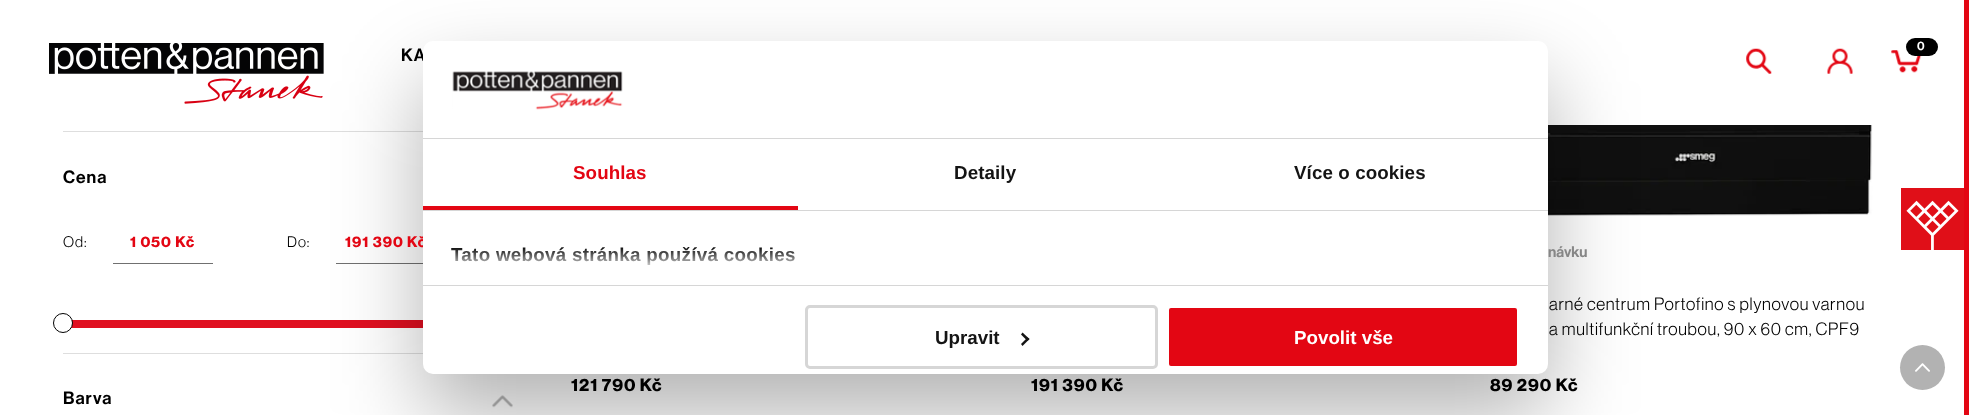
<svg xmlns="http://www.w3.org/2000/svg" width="1969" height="415">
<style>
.a{font:500 12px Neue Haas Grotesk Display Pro;letter-spacing:1px;fill:#fff}
.b{font:500 17.5px Neue Haas Grotesk Display Pro;letter-spacing:0.9px;fill:#000}
.c{font:500 17.5px Neue Haas Grotesk Display Pro;letter-spacing:1px;fill:#000}
.d{font:15px Neue Haas Grotesk Display Pro;letter-spacing:1px;fill:#000}
.e{font:bold 15px Neue Haas Grotesk Display Pro;letter-spacing:1px;fill:#e30613}
.f{font:bold 18.75px Liberation Sans;letter-spacing:0.3px;fill:#141414}
.g{font:bold 18.75px Liberation Sans;fill:#fff}
.h{font:bold 18.75px Liberation Sans;fill:#141414}
.i{font:bold 18.75px Liberation Sans;letter-spacing:0.1px;fill:#141414}
.j{font:bold 18.75px Liberation Sans;letter-spacing:0.1px;fill:#e30613}
.k{font:bold 17.5px Neue Haas Grotesk Display Pro;letter-spacing:0.9px;fill:#000}
.l{font:500 15px Neue Haas Grotesk Display Pro;fill:#868686}
.m{font:17.5px Neue Haas Grotesk Display Pro;letter-spacing:0.7px;fill:#000}
</style>
<defs>
<linearGradient id="g1" gradientUnits="userSpaceOnUse" x1="973" y1="285" x2="973" y2="248"><stop offset="0" stop-color="#fff"/><stop offset="0.5" stop-color="#fff" stop-opacity="0.8"/><stop offset="1" stop-color="#fff" stop-opacity="0"/></linearGradient>
</defs>
<rect width="100%" height="100%" fill="#fff"/>
<image href="1.png" x="1891" y="50" width="31" height="23"/>
<rect fill="#000" x="1906" y="38" width="32" height="18" rx="9"/>
<image href="2.png" x="1746" y="48" width="26" height="26"/>
<image href="3.png" x="1827" y="48" width="26" height="26"/>
<image href="4.png" x="49" y="43" width="275" height="61"/>
<path fill="#e30613" d="M1964 0h5v415H1964z"/>
<path fill="#dedede" d="M63 131h360v1H63z"/>
<path fill="#dedede" d="M63 353h360v1H63z"/>
<path fill="#707070" d="M336 263h87v1H336z"/>
<path fill="#e01021" d="M63 320h360v8H63z"/>
<image href="6.png" x="492" y="395" width="21" height="13"/>
<image href="7.png" x="1548" y="125" width="325" height="91"/>
<rect fill="#0000004d" filter="blur(42.5px)" x="423" y="81" width="1125" height="333" rx="10"/>
<path fill="#707070" d="M113 263h100v1H113z"/>
<circle fill="#fff" stroke="#000" cx="63" cy="323" r="9.5"/>
<image href="8.png" x="1901" y="188" width="63" height="62"/>
<circle fill="#b2b2b2" cx="1922.5" cy="367.5" r="22.5"/>
<image href="9.png" x="1915" y="363" width="15" height="9"/>
<text class="a" x="1917" y="50">0</text>
<text class="b" x="401" y="61">KA</text>
<text class="c" x="63" y="183">Cena</text>
<text class="d" x="63" y="247">Od:</text>
<text class="e" x="130" y="247">1 050 Kč</text>
<text class="d" x="287" y="247">Do:</text>
<text class="e" x="345" y="247">191 390 Kč</text>
<rect fill="#fff" x="423" y="41" width="1125" height="333" rx="10"/>
<text class="f" x="451" y="261">Tato webová stránka používá cookies</text>
<path fill="url(#g1)" d="M451 248h344v17H451z"/>
<rect fill="none" stroke="#d6d6d6" stroke-width="3" x="806.5" y="306.5" width="350" height="61" rx="3.5"/>
<path fill="#141414" d="M1022.5 332.5l7 6.5l-2 2l-6.5-6.5z"/>
<path fill="#141414" d="M1027.5 337.5l2 1.5l-7 7l-1.5-2z"/>
<rect fill="#e30613" stroke="#fff" stroke-width="3" x="1167.5" y="306.5" width="351" height="61" rx="3.5"/>
<text class="g" x="1294" y="344">Povolit vše</text>
<text class="h" x="935" y="344">Upravit</text>
<path fill="#d6d6d6" d="M423 285h1125v1H423z"/>
<text class="i" x="1294" y="179">Více o cookies</text>
<text class="i" x="954" y="179">Detaily</text>
<text class="j" x="573" y="179">Souhlas</text>
<path fill="#e30613" d="M423 206h375v4H423z"/>
<path fill="#d6d6d6" d="M423 210h1125v1H423z"/>
<image href="5.png" x="452" y="71" width="171" height="39"/>
<path fill="#d6d6d6" d="M423 138h1125v1H423z"/>
<text class="c" x="63" y="404">Barva</text>
<text class="k" x="571" y="391">121 790 Kč</text>
<text class="k" x="1031" y="391">191 390 Kč</text>
<text class="l" x="1548" y="257">návku</text>
<text class="m" x="1549" y="310">arné centrum Portofino s plynovou varnou</text>
<text class="m" x="1549" y="335">a multifunkční troubou, 90 x 60 cm, CPF9</text>
<text class="k" x="1490" y="391">89 290 Kč</text>
</svg>
